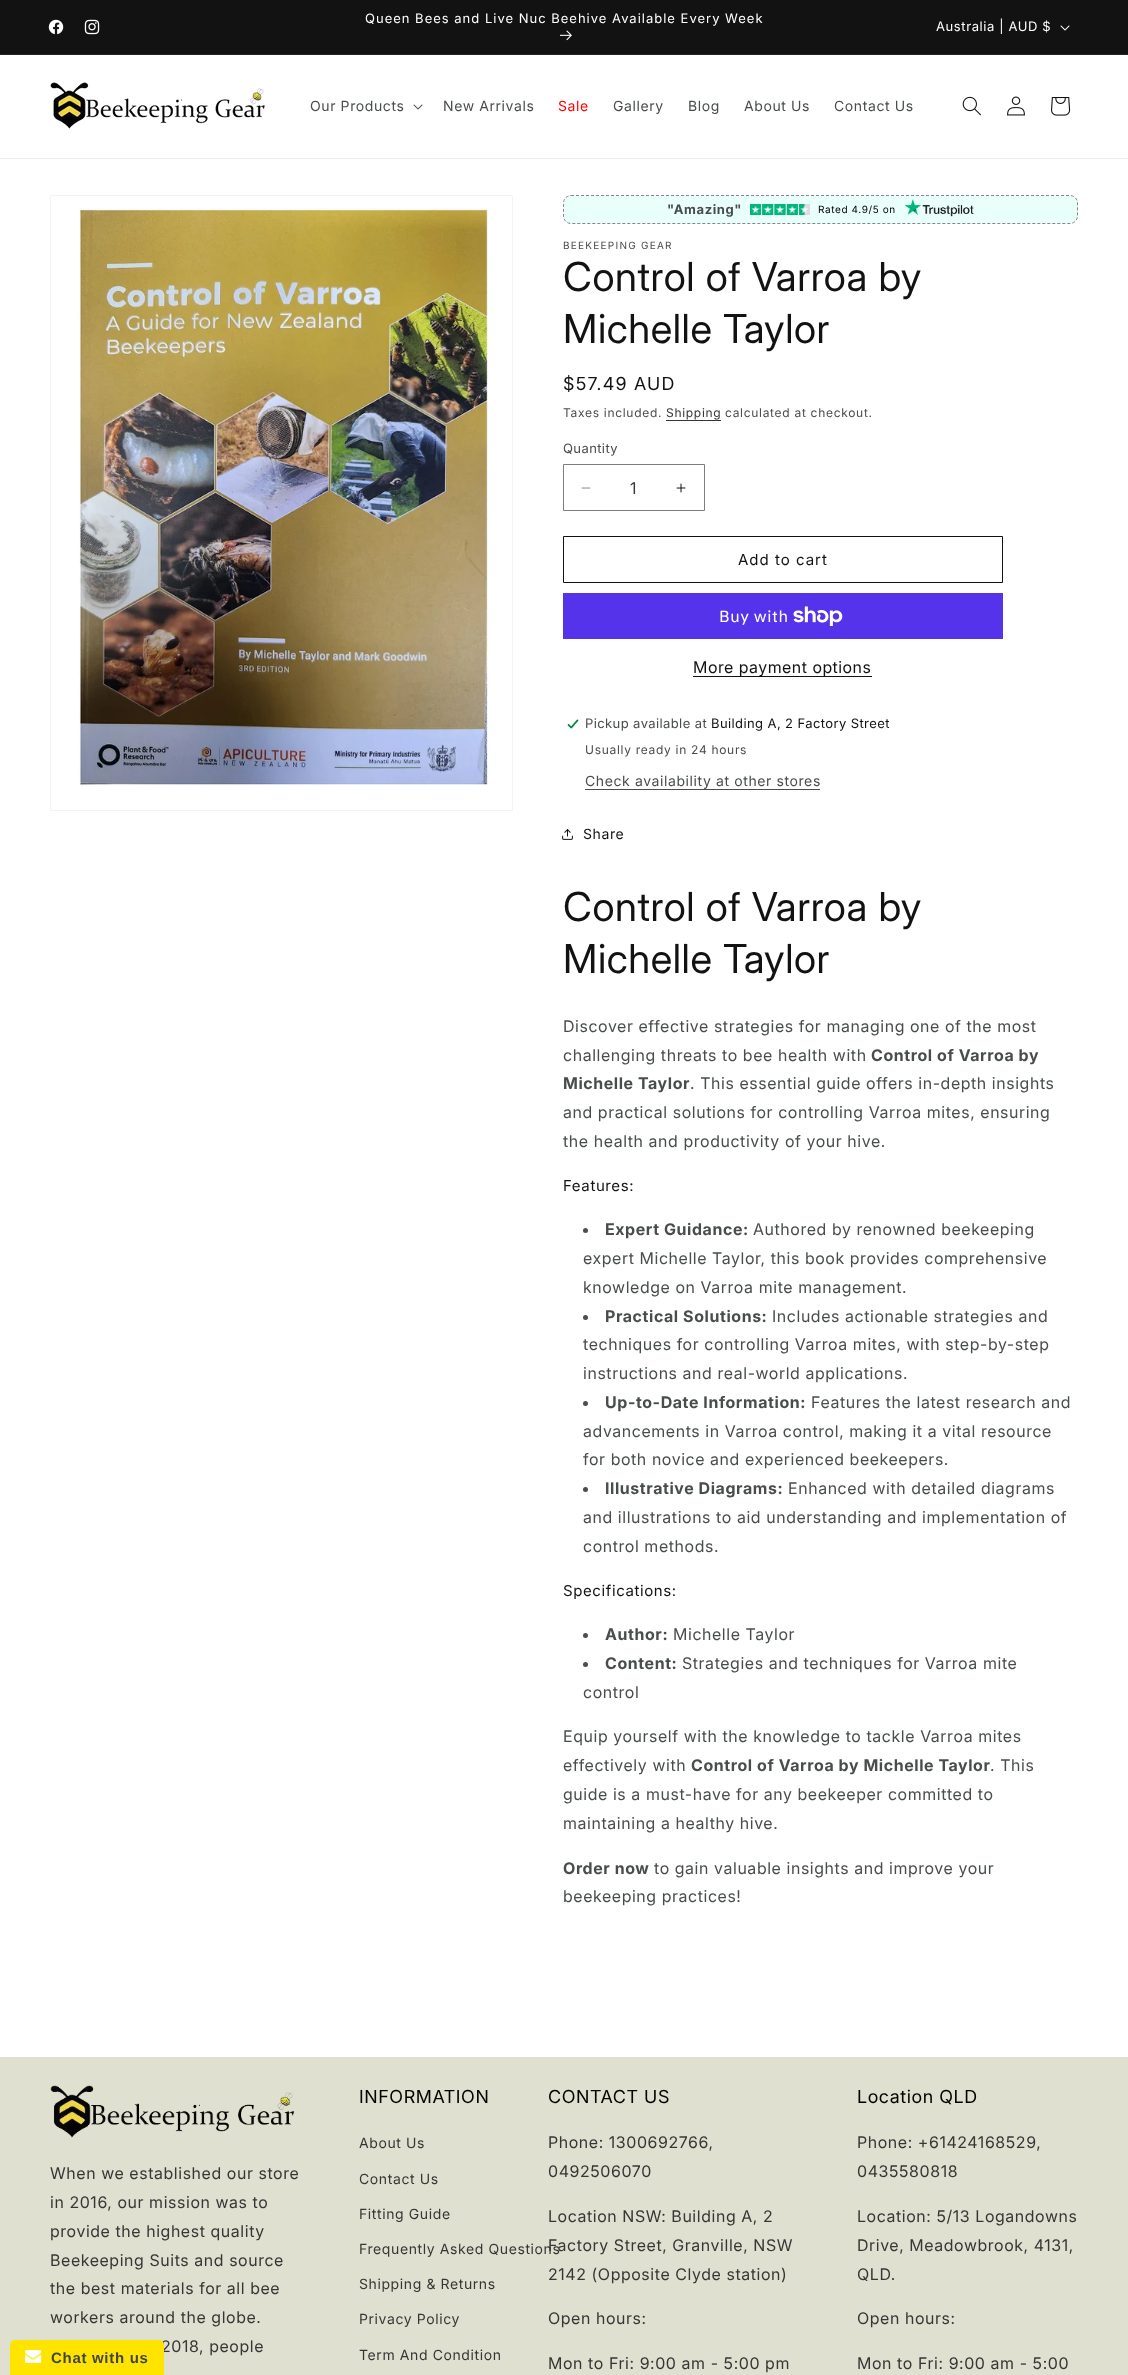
<svg xmlns="http://www.w3.org/2000/svg" width="1128" height="2375">
<style>
.a{font:13px Inter;letter-spacing:1px;fill:#fff}
.b{font:13px Inter;letter-spacing:0.6px;fill:#fff}
.c{font:14px Inter;letter-spacing:0.6px;fill:#484d4c}
.d{font:14px Inter;letter-spacing:0.6px;fill:#f00}
.e{font:bold 13px Inter;letter-spacing:0.6px;fill:#484d4c}
.f{font:10px Inter;letter-spacing:0.6px;fill:#000}
.g{font:10px Inter;letter-spacing:1.25px;fill:#484d4c}
.h{font:40px 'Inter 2';letter-spacing:0.6px;fill:#121212}
.i{font:18px 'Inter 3';letter-spacing:1.25px;fill:#121212}
.j{font:12px Inter;letter-spacing:0.7px;fill:#484d4c}
.k{font:12px Inter;letter-spacing:0.7px;fill:#363636}
.l{font:13px Inter;letter-spacing:0.4px;fill:#484d4c}
.m{font:16px 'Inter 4';fill:#363636}
.n{font:15px Inter;letter-spacing:1px;fill:#121212}
.o{font:16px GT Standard;letter-spacing:0.6px;fill:#fff}
.p{font:16px 'Inter 4';letter-spacing:0.5px;fill:#121212}
.q{font:13px Inter;letter-spacing:0.4px;fill:#121212}
.r{font:14px Inter;letter-spacing:0.6px;fill:#121212}
.s{font:16px 'Inter 4';letter-spacing:0.6px;fill:#484d4c}
.t{font:bold 16px 'Inter 2';letter-spacing:0.6px;fill:#484d4c}
.u{font:15px Inter;letter-spacing:0.6px;fill:#121212}
.v{font:16px 'Inter 4';letter-spacing:0.6px;fill:#363636}
.w{font:18px 'Inter 3';letter-spacing:0.6px;fill:#000}
.x{font:14px Inter;letter-spacing:0.6px;fill:#363636}
.y{font:bold 15px Liberation Sans;letter-spacing:0.7px;fill:#424548}
</style>
<rect width="100%" height="100%" fill="#fff"/>
<path fill="#121212" d="M0 0h1128v54H0z"/>
<path fill="#252525" d="M0 54h1128v1H0z"/>
<image href="1.png" x="48" y="19" width="16" height="16"/>
<image href="2.png" x="84" y="19" width="16" height="16"/>
<image href="3.png" x="560" y="30" width="12" height="11"/>
<image href="4.png" x="1060" y="25" width="10" height="6"/>
<path fill="#ececec" d="M0 158h1128v1H0z"/>
<image href="5.png" x="50" y="82" width="215" height="47"/>
<image href="6.png" x="413" y="104" width="10" height="6"/>
<image href="7.png" x="962" y="96" width="19" height="20"/>
<image href="8.png" x="1007" y="96" width="18" height="20"/>
<image href="9.png" x="1051" y="97" width="20" height="19"/>
<path fill="none" stroke="#f3f3f3" d="M50.5 195.5h462v615H50.5z"/>
<image href="10.png" x="78" y="208" width="410" height="579"/>
<rect fill="#e9fff9" x="563" y="195" width="515" height="29" rx="8"/>
<path fill="none" stroke="#898686" stroke-dasharray="3 2" d="M571 195.5h499c4 0 7.5 3.5 7.5 7.5v13c0 4-3.5 7.5-7.5 7.5h-499c-4 0-7.5-3.5-7.5-7.5v-13c0-4 3.5-7.5 7.5-7.5z"/>
<image href="11.png" x="750" y="204" width="60" height="11"/>
<image href="12.png" x="904" y="199" width="70" height="18"/>
<path fill="#363636" d="M666 420h55v1H666z"/>
<image href="13.png" x="581" y="487" width="10" height="2"/>
<image href="14.png" x="676" y="483" width="10" height="10"/>
<path fill="none" stroke="#7d7d7d" d="M563.5 464.5h141v46H563.5z"/>
<path fill="none" stroke="#121212" d="M563.5 536.5h439v46H563.5z"/>
<path fill="#5433eb" d="M563 593h440v46H563z"/>
<image href="15.png" x="793" y="606" width="50" height="20"/>
<path fill="#121212" d="M693 676h179v1H693z"/>
<image href="16.png" x="567" y="719" width="12" height="10"/>
<path fill="#4d4d4d" d="M585 789h235v1H585z"/>
<image href="17.png" x="562" y="829" width="11" height="11"/>
<circle fill="#4d4d4d" cx="585.5" cy="1230.5" r="2.5"/>
<circle fill="#4d4d4d" cx="585.5" cy="1317.5" r="2.5"/>
<circle fill="#4d4d4d" cx="585.5" cy="1403.5" r="2.5"/>
<circle fill="#4d4d4d" cx="585.5" cy="1489.5" r="2.5"/>
<circle fill="#4d4d4d" cx="585.5" cy="1635.5" r="2.5"/>
<circle fill="#4d4d4d" cx="585.5" cy="1664.5" r="2.5"/>
<path fill="#e0e0d1" d="M0 2057h1128v318H0z"/>
<image href="18.png" x="50" y="2085" width="244" height="53"/>
<text class="a" x="365" y="23">Queen Bees and Live Nuc Beehive Available Every Week</text>
<text class="b" x="936" y="31">Australia | AUD $</text>
<text class="c" x="310" y="111">Our Products</text>
<text class="c" x="443" y="111">New Arrivals</text>
<text class="d" x="558" y="111">Sale</text>
<text class="c" x="613" y="111">Gallery</text>
<text class="c" x="688" y="111">Blog</text>
<text class="c" x="744" y="111">About Us</text>
<text class="c" x="834" y="111">Contact Us</text>
<text class="e" x="667" y="214">"Amazing"</text>
<text class="f" x="818" y="213">Rated 4.9/5 on</text>
<text class="g" x="563" y="249">BEEKEEPING GEAR</text>
<text class="h" x="563" y="291">Control of Varroa by</text>
<text class="h" x="563" y="343">Michelle Taylor</text>
<text class="i" x="563" y="390">$57.49 AUD</text>
<text class="j" x="563" y="417">Taxes included.</text>
<text class="k" x="666" y="417">Shipping</text>
<text class="j" x="725" y="417">calculated at checkout.</text>
<text class="l" x="563" y="453">Quantity</text>
<text class="m" x="630" y="494">1</text>
<text class="n" x="738" y="565">Add to cart</text>
<text class="o" x="719" y="622">Buy with</text>
<text class="p" x="693" y="673">More payment options</text>
<text class="l" x="585" y="728">Pickup available at</text>
<text class="q" x="711" y="728">Building A, 2 Factory Street</text>
<text class="j" x="585" y="754">Usually ready in 24 hours</text>
<text class="c" x="585" y="786">Check availability at other stores</text>
<text class="r" x="583" y="839">Share</text>
<text class="h" x="563" y="921">Control of Varroa by</text>
<text class="h" x="563" y="973">Michelle Taylor</text>
<text class="s" x="563" y="1032">Discover effective strategies for managing one of the most</text>
<text class="s" x="563" y="1061">challenging threats to bee health with</text>
<text class="t" x="871" y="1061">Control of Varroa by</text>
<text class="t" x="563" y="1089">Michelle Taylor</text>
<text class="s" x="690" y="1089">. This essential guide offers in-depth insights</text>
<text class="s" x="563" y="1118">and practical solutions for controlling Varroa mites, ensuring</text>
<text class="s" x="563" y="1147">the health and productivity of your hive.</text>
<text class="u" x="563" y="1191">Features:</text>
<text class="t" x="605" y="1235">Expert Guidance:</text>
<text class="s" x="753" y="1235">Authored by renowned beekeeping</text>
<text class="s" x="583" y="1264">expert Michelle Taylor, this book provides comprehensive</text>
<text class="s" x="583" y="1293">knowledge on Varroa mite management.</text>
<text class="t" x="605" y="1322">Practical Solutions:</text>
<text class="s" x="772" y="1322">Includes actionable strategies and</text>
<text class="s" x="583" y="1350">techniques for controlling Varroa mites, with step-by-step</text>
<text class="s" x="583" y="1379">instructions and real-world applications.</text>
<text class="t" x="605" y="1408">Up-to-Date Information:</text>
<text class="s" x="811" y="1408">Features the latest research and</text>
<text class="s" x="583" y="1437">advancements in Varroa control, making it a vital resource</text>
<text class="s" x="583" y="1465">for both novice and experienced beekeepers.</text>
<text class="t" x="605" y="1494">Illustrative Diagrams:</text>
<text class="s" x="788" y="1494">Enhanced with detailed diagrams</text>
<text class="s" x="583" y="1523">and illustrations to aid understanding and implementation of</text>
<text class="s" x="583" y="1552">control methods.</text>
<text class="u" x="563" y="1596">Specifications:</text>
<text class="t" x="605" y="1640">Author:</text>
<text class="s" x="673" y="1640">Michelle Taylor</text>
<text class="t" x="605" y="1669">Content:</text>
<text class="s" x="682" y="1669">Strategies and techniques for Varroa mite</text>
<text class="s" x="583" y="1698">control</text>
<text class="s" x="563" y="1742">Equip yourself with the knowledge to tackle Varroa mites</text>
<text class="s" x="563" y="1771">effectively with</text>
<text class="t" x="691" y="1771">Control of Varroa by Michelle Taylor</text>
<text class="s" x="990" y="1771">. This</text>
<text class="s" x="563" y="1800">guide is a must-have for any beekeeper committed to</text>
<text class="s" x="563" y="1829">maintaining a healthy hive.</text>
<text class="t" x="563" y="1874">Order now</text>
<text class="s" x="654" y="1874">to gain valuable insights and improve your</text>
<text class="s" x="563" y="1902">beekeeping practices!</text>
<text class="v" x="50" y="2179">When we established our store</text>
<text class="v" x="50" y="2208">in 2016, our mission was to</text>
<text class="v" x="50" y="2237">provide the highest quality</text>
<text class="v" x="50" y="2266">Beekeeping Suits and source</text>
<text class="v" x="50" y="2294">the best materials for all bee</text>
<text class="v" x="50" y="2323">workers around the globe.</text>
<text class="v" x="161" y="2352">2018, people</text>
<text class="w" x="359" y="2103">INFORMATION</text>
<text class="x" x="359" y="2148">About Us</text>
<text class="x" x="359" y="2184">Contact Us</text>
<text class="x" x="359" y="2219">Fitting Guide</text>
<text class="x" x="359" y="2254">Frequently Asked Questions</text>
<text class="x" x="359" y="2289">Shipping &amp; Returns</text>
<text class="x" x="359" y="2324">Privacy Policy</text>
<text class="x" x="359" y="2360">Term And Condition</text>
<text class="w" x="548" y="2103">CONTACT US</text>
<text class="v" x="548" y="2148">Phone: 1300692766,</text>
<text class="v" x="548" y="2177">0492506070</text>
<text class="v" x="548" y="2222">Location NSW: Building A, 2</text>
<text class="v" x="548" y="2251">Factory Street, Granville, NSW</text>
<text class="v" x="548" y="2280">2142 (Opposite Clyde station)</text>
<text class="v" x="548" y="2324">Open hours:</text>
<text class="v" x="548" y="2369">Mon to Fri: 9:00 am - 5:00 pm</text>
<text class="w" x="857" y="2103">Location QLD</text>
<text class="v" x="857" y="2148">Phone: +61424168529,</text>
<text class="v" x="857" y="2177">0435580818</text>
<text class="v" x="857" y="2222">Location: 5/13 Logandowns</text>
<text class="v" x="857" y="2251">Drive, Meadowbrook, 4131,</text>
<text class="v" x="857" y="2280">QLD.</text>
<text class="v" x="857" y="2324">Open hours:</text>
<text class="v" x="857" y="2369">Mon to Fri: 9:00 am - 5:00</text>
<path fill="#ffe400" d="M15 2340h144c3 0 5 2 5 5v30h-154v-30c0-3 2-5 5-5z"/>
<image href="19.png" x="25" y="2350" width="17" height="13"/>
<text class="y" x="51" y="2363">Chat with us</text>
</svg>
